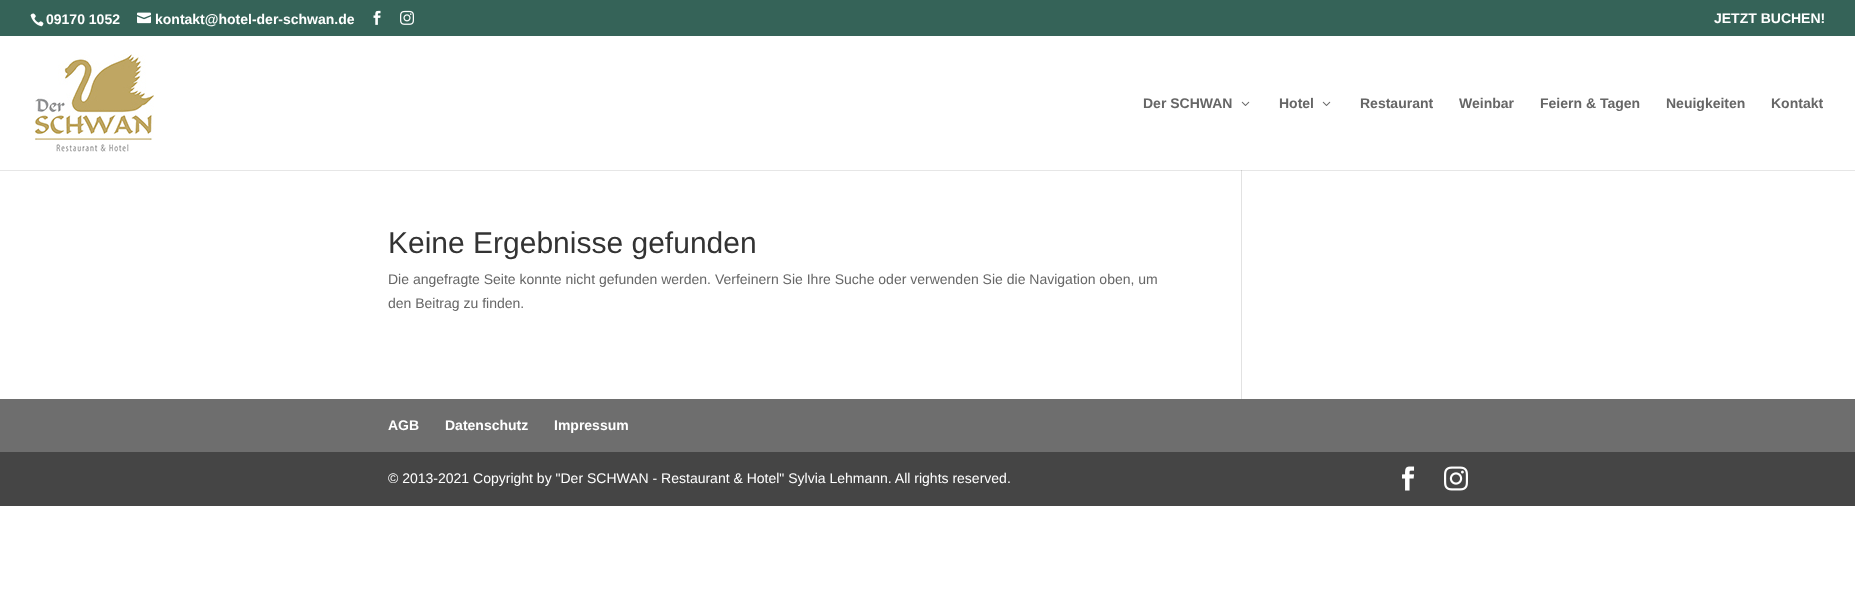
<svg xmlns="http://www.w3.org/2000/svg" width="1855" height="606">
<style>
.a{font:bold 14px Liberation Sans;fill:#fff}
.b{font:bold 14px Liberation Sans;fill:#666}
.c{font:30px Liberation Sans;fill:#333}
.d{font:14px Liberation Sans;fill:#666}
.e{font:14px Liberation Sans;fill:#fff}
</style>
<rect width="100%" height="100%" fill="#fff"/>
<path fill="#e6e6e6" d="M0 170h1855v1H0z"/>
<path fill="#356358" d="M0 0h1855v36H0z"/>
<image href="1.png" x="30" y="13" width="14" height="14"/>
<image href="2.png" x="137" y="12" width="14" height="12"/>
<image href="3.png" x="373" y="10" width="8" height="15"/>
<image href="4.png" x="400" y="10" width="14" height="15"/>
<image href="5.png" x="35" y="54" width="119" height="98"/>
<image href="6.png" x="1241" y="101" width="9" height="5"/>
<image href="6.png" x="1322" y="101" width="9" height="5"/>
<path fill="#e2e2e2" d="M1241 170h1v229H1241z"/>
<path fill="#cbcbcb" d="M1241 170h1v1H1241z"/>
<path fill="#6e6e6e" d="M0 399h1855v53H0z"/>
<path fill="#454545" d="M0 452h1855v54H0z"/>
<image href="7.png" x="1402" y="466" width="13" height="25"/>
<image href="8.png" x="1444" y="466" width="24" height="25"/>
<text class="a" x="46" y="24">09170 1052</text>
<text class="a" x="155" y="24">kontakt@hotel-der-schwan.de</text>
<text class="a" x="1714" y="23">JETZT BUCHEN!</text>
<text class="b" x="1143" y="108">Der SCHWAN</text>
<text class="b" x="1279" y="108">Hotel</text>
<text class="b" x="1360" y="108">Restaurant</text>
<text class="b" x="1459" y="108">Weinbar</text>
<text class="b" x="1540" y="108">Feiern &amp; Tagen</text>
<text class="b" x="1666" y="108">Neuigkeiten</text>
<text class="b" x="1771" y="108">Kontakt</text>
<text class="c" x="388" y="253">Keine Ergebnisse gefunden</text>
<text class="d" x="388" y="284">Die angefragte Seite konnte nicht gefunden werden. Verfeinern Sie Ihre Suche oder verwenden Sie die Navigation oben, um</text>
<text class="d" x="388" y="308">den Beitrag zu finden.</text>
<text class="a" x="388" y="430">AGB</text>
<text class="a" x="445" y="430">Datenschutz</text>
<text class="a" x="554" y="430">Impressum</text>
<text class="e" x="388" y="483">© 2013-2021 Copyright by "Der SCHWAN - Restaurant &amp; Hotel" Sylvia Lehmann. All rights reserved.</text>
</svg>
